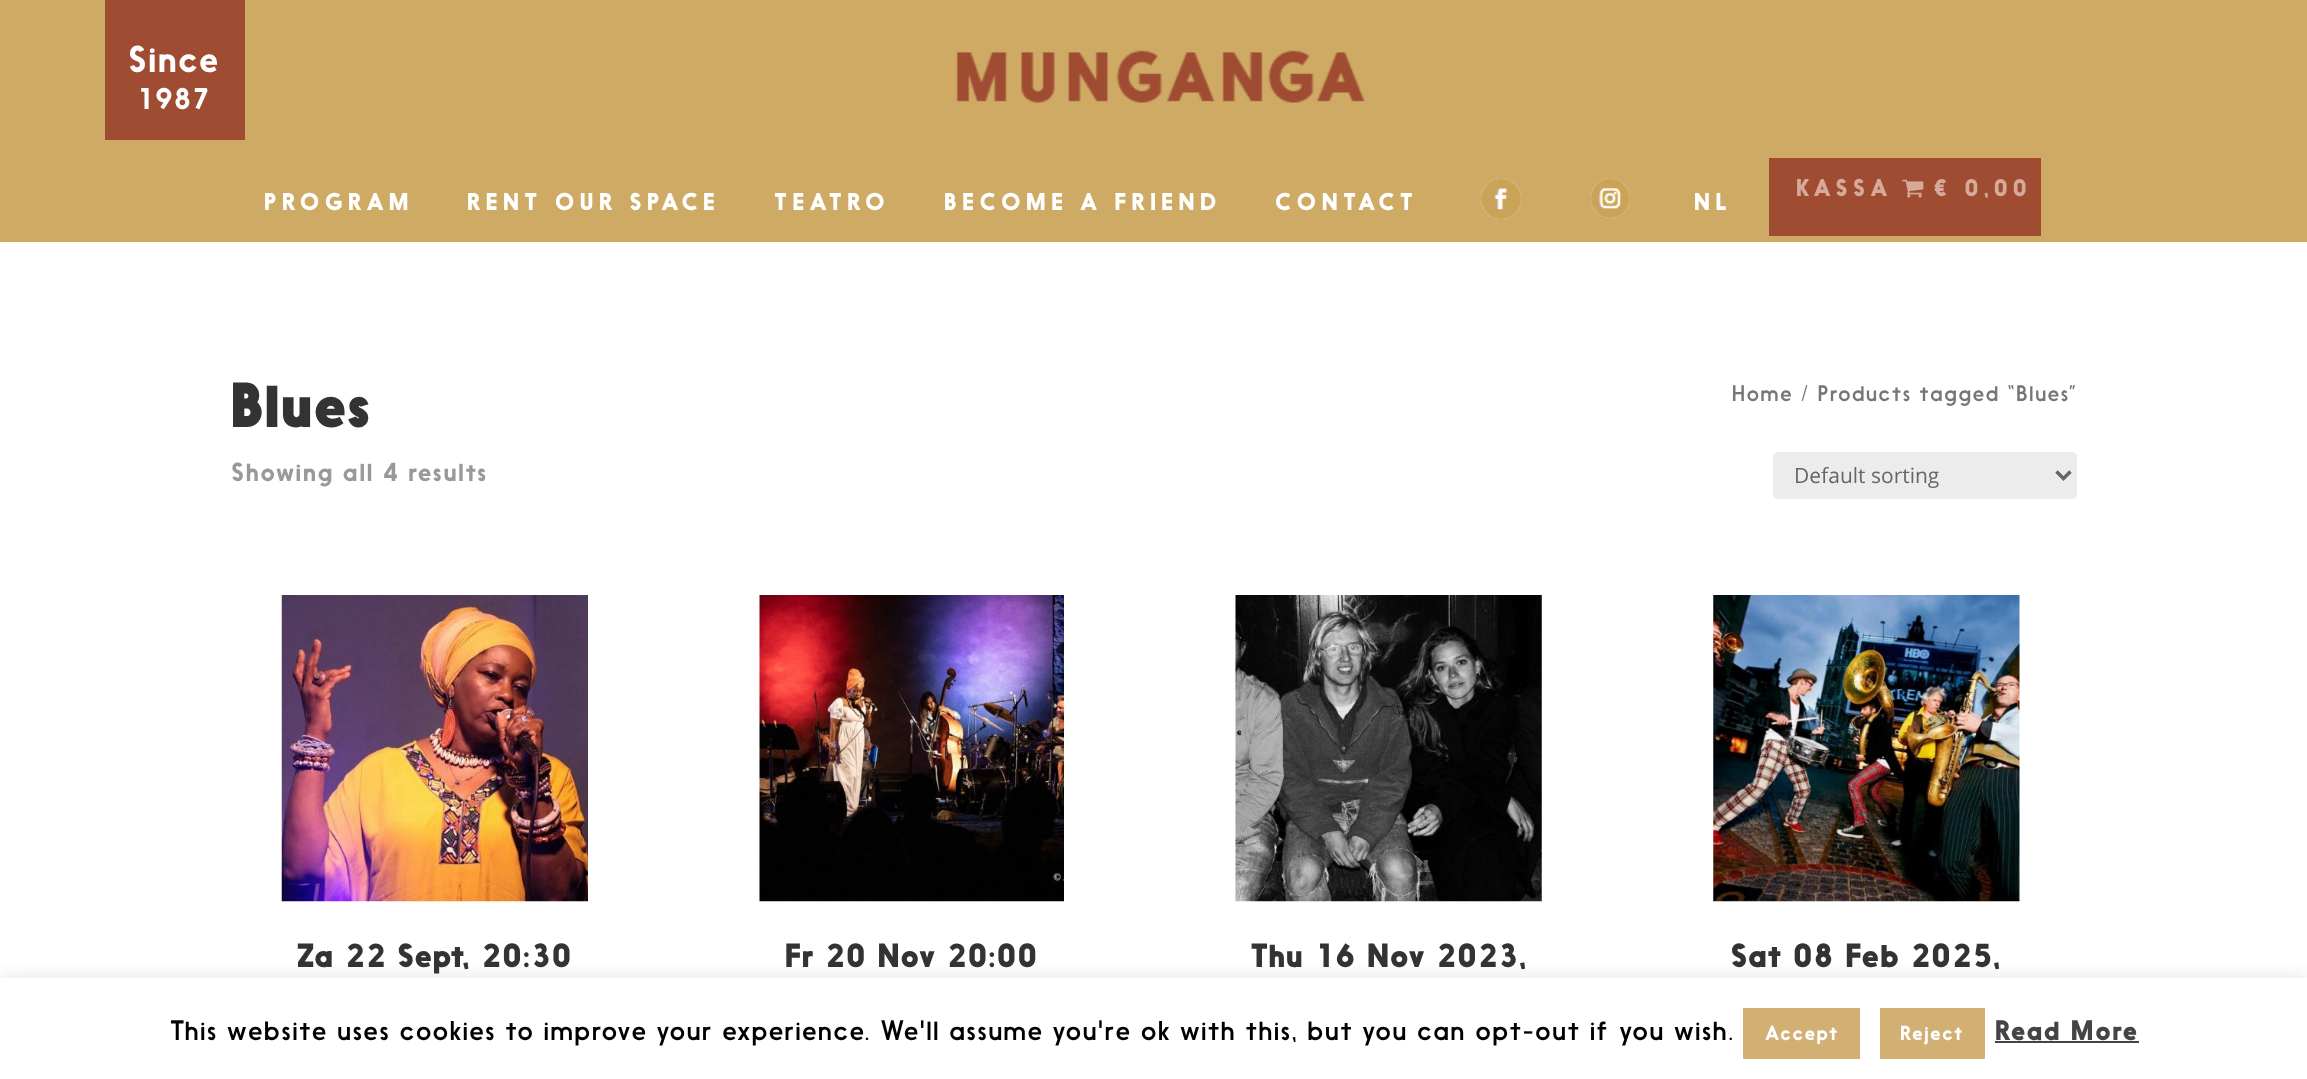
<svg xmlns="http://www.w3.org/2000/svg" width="2307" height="1079">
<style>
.a{font:500 35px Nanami;letter-spacing:1.75px;fill:#fff}
.b{font:500 28px Nanami;letter-spacing:1.75px;fill:#fff}
.c{font:bold 22.75px Nanami;letter-spacing:5.25px;fill:#d6a99b}
.d{font:bold 22.75px Nanami;letter-spacing:5.25px;fill:#fff}
.e{font:900 59.5px Nanami;letter-spacing:1.75px;fill:#333}
.f{font:21px Nanami;letter-spacing:1.75px;fill:#767676}
.g{font:500 24.5px Nanami;letter-spacing:1.75px;fill:#999}
.h{font:21px Open Sans;fill:#666}
.i{font:900 31.5px 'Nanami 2';letter-spacing:1.75px;fill:#333}
.j{font:26.25px Nanami;letter-spacing:1.75px;fill:#000}
.k{font:500 19px Nanami;letter-spacing:1.75px;fill:#fff}
.l{font:bold 26.25px Nanami;letter-spacing:1.75px;fill:#444}
</style>
<rect width="100%" height="100%" fill="#fff"/>
<path fill="#ceaa65" d="M0 0h2307v242H0z"/>
<path fill="#9f4c33" d="M105 0h140v140H105z"/>
<image href="1.png" x="956" y="50" width="409" height="53"/>
<image href="2.png" x="1480" y="178" width="42" height="42"/>
<image href="3.png" x="1590" y="178" width="40" height="41"/>
<path fill="#9f4c33" d="M1769 158h272v78H1769z"/>
<image href="4.png" x="1902" y="179" width="22" height="19"/>
<rect fill="#ececec" x="1773" y="452" width="304" height="47" rx="5"/>
<path fill="none" stroke="#666" stroke-width="3.5" d="M2056.5 471.5l7 7l7-7"/>
<image href="5.png" x="281" y="595" width="307" height="307"/>
<image href="6.png" x="759" y="595" width="305" height="307"/>
<image href="7.png" x="1235" y="595" width="307" height="307"/>
<image href="8.png" x="1713" y="595" width="307" height="307"/>
<path fill="#acabab4d" filter="blur(9px)" d="M0 977h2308v101H0z"/>
<path fill="#fff" d="M0 978h2307v101H0z"/>
<path fill="#d2b074" d="M1743 1008h117v51H1743z"/>
<path fill="#d2b074" d="M1880 1008h105v51H1880z"/>
<path fill="#444" d="M1995 1041h144v2H1995z"/>
<text class="a" x="128" y="72">Since</text>
<text class="b" x="137" y="109">1987</text>
<text class="c" x="1796" y="196">KASSA</text>
<text class="c" x="1934" y="196">€ 0,00</text>
<text class="d" x="264" y="210">PROGRAM</text>
<text class="d" x="467" y="210">RENT OUR SPACE</text>
<text class="d" x="774" y="210">TEATRO</text>
<text class="d" x="944" y="210">BECOME A FRIEND</text>
<text class="d" x="1275" y="210">CONTACT</text>
<text class="d" x="1694" y="210">NL</text>
<text class="e" x="231" y="427">Blues</text>
<text class="f" x="1732" y="401">Home / Products tagged “Blues”</text>
<text class="g" x="231" y="481">Showing all 4 results</text>
<text class="h" x="1794" y="483">Default sorting</text>
<text class="i" x="297" y="967">Za 22 Sept, 20:30</text>
<text class="i" x="785" y="967">Fr 20 Nov 20:00</text>
<text class="i" x="1251" y="967">Thu 16 Nov 2023,</text>
<text class="i" x="1731" y="967">Sat 08 Feb 2025,</text>
<text class="j" x="170" y="1040">This website uses cookies to improve your experience. We'll assume you're ok with this, but you can opt-out if you wish.</text>
<text class="k" x="1765" y="1040">Accept</text>
<text class="k" x="1900" y="1040">Reject</text>
<text class="l" x="1995" y="1040">Read More</text>
</svg>
